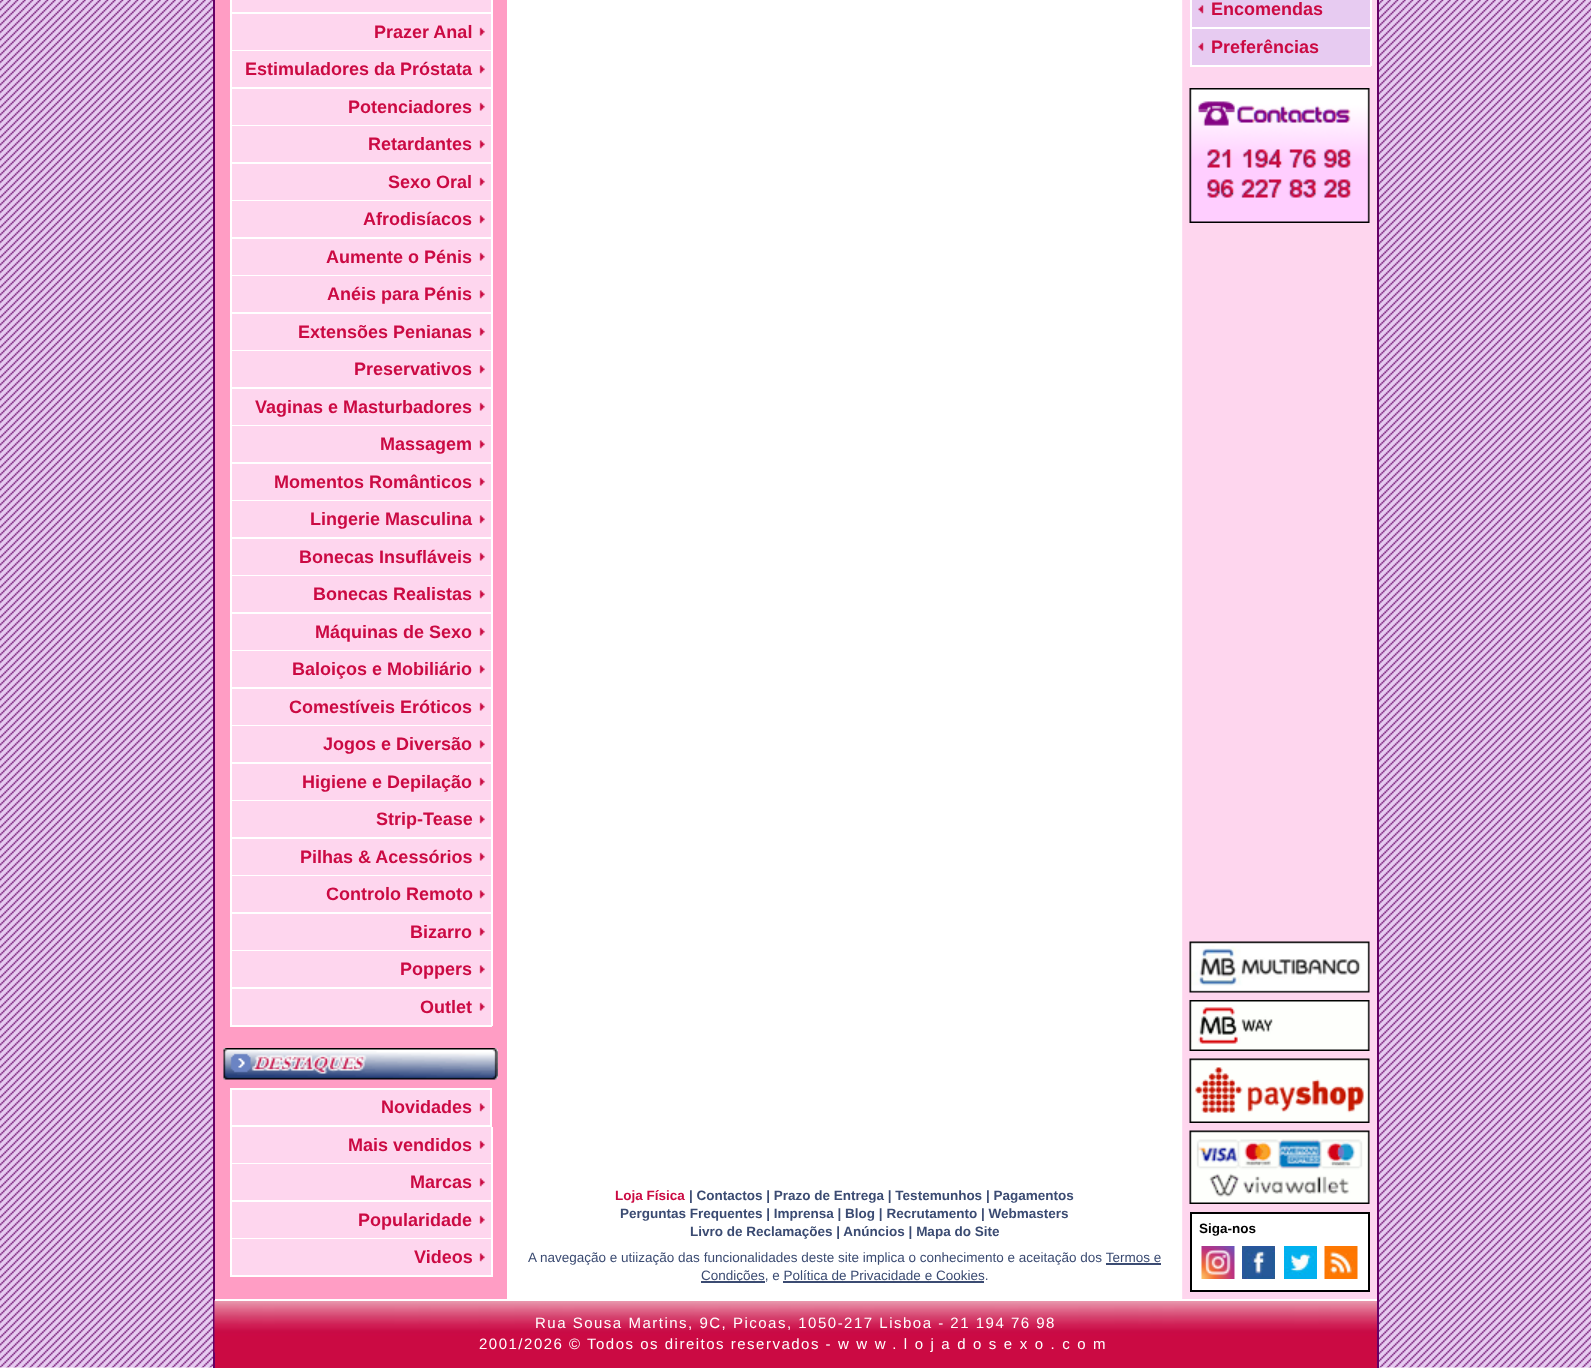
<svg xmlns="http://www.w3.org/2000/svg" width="1591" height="1368">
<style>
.a{font:bold 18px Liberation Sans;fill:#cb0a43}
.b{font:bold 13.5px Liberation Sans;fill:#cb0a43}
.c{font:bold 13.5px Liberation Sans;fill:#3b4b72}
.d{font:13.5px Liberation Sans;fill:#3b4b72}
.e{font:bold 13.5px Liberation Sans;fill:#000}
.f{font:15px Liberation Sans;letter-spacing:1.5px;fill:#fff}
.g{font:15px Liberation Sans;letter-spacing:7.5px;fill:#fff}
</style>
<rect width="100%" height="100%" fill="#fff"/>
<image href="1.png" x="0" y="0" width="1591" height="1368"/>
<path fill="#fed6ee" d="M1182 0h195v1299H1182z"/>
<image href="2.png" x="1182" y="0" width="1" height="1299"/>
<path fill="#606" d="M1377 0h2v1368H1377z"/>
<path fill="#606" d="M213 0h2v1368H213z"/>
<path fill="#ff9dc4" d="M215 0h292v1299H215z"/>
<path fill="#fed6ee" d="M232 0h259v12H232z"/>
<path fill="#fff" d="M491 0h2v1026H491z"/>
<path fill="#fff" d="M230 12h262v2H230z"/>
<path fill="#fff" d="M230 0h2v14H230z"/>
<path fill="#fed6ee" d="M232 14h259v36H232z"/>
<image href="3.png" x="479" y="27" width="6" height="9"/>
<path fill="#fff" d="M230 50h262v1H230z"/>
<path fill="#fff" d="M230 14h2v37H230z"/>
<path fill="#fed6ee" d="M232 51h259v36H232z"/>
<image href="4.png" x="479" y="65" width="6" height="9"/>
<path fill="#fff" d="M230 87h262v2H230z"/>
<path fill="#fff" d="M230 51h2v38H230z"/>
<path fill="#fed6ee" d="M232 89h259v36H232z"/>
<image href="3.png" x="479" y="102" width="6" height="9"/>
<path fill="#fff" d="M230 125h262v1H230z"/>
<path fill="#fff" d="M230 89h2v37H230z"/>
<path fill="#fed6ee" d="M232 126h259v36H232z"/>
<image href="4.png" x="479" y="140" width="6" height="9"/>
<path fill="#fff" d="M230 162h262v2H230z"/>
<path fill="#fff" d="M230 126h2v38H230z"/>
<path fill="#fed6ee" d="M232 164h259v36H232z"/>
<image href="3.png" x="479" y="177" width="6" height="9"/>
<path fill="#fff" d="M230 200h262v1H230z"/>
<path fill="#fff" d="M230 164h2v37H230z"/>
<path fill="#fed6ee" d="M232 201h259v36H232z"/>
<image href="4.png" x="479" y="215" width="6" height="9"/>
<path fill="#fff" d="M230 237h262v2H230z"/>
<path fill="#fff" d="M230 201h2v38H230z"/>
<path fill="#fed6ee" d="M232 239h259v36H232z"/>
<image href="3.png" x="479" y="252" width="6" height="9"/>
<path fill="#fff" d="M230 275h262v1H230z"/>
<path fill="#fff" d="M230 239h2v37H230z"/>
<path fill="#fed6ee" d="M232 276h259v36H232z"/>
<image href="4.png" x="479" y="290" width="6" height="9"/>
<path fill="#fff" d="M230 312h262v2H230z"/>
<path fill="#fff" d="M230 276h2v38H230z"/>
<path fill="#fed6ee" d="M232 314h259v36H232z"/>
<image href="3.png" x="479" y="327" width="6" height="9"/>
<path fill="#fff" d="M230 350h262v1H230z"/>
<path fill="#fff" d="M230 314h2v37H230z"/>
<path fill="#fed6ee" d="M232 351h259v36H232z"/>
<image href="4.png" x="479" y="365" width="6" height="9"/>
<path fill="#fff" d="M230 387h262v2H230z"/>
<path fill="#fff" d="M230 351h2v38H230z"/>
<path fill="#fed6ee" d="M232 389h259v36H232z"/>
<image href="3.png" x="479" y="402" width="6" height="9"/>
<path fill="#fff" d="M230 425h262v1H230z"/>
<path fill="#fff" d="M230 389h2v37H230z"/>
<path fill="#fed6ee" d="M232 426h259v36H232z"/>
<image href="4.png" x="479" y="440" width="6" height="9"/>
<path fill="#fff" d="M230 462h262v2H230z"/>
<path fill="#fff" d="M230 426h2v38H230z"/>
<path fill="#fed6ee" d="M232 464h259v36H232z"/>
<image href="3.png" x="479" y="477" width="6" height="9"/>
<path fill="#fff" d="M230 500h262v1H230z"/>
<path fill="#fff" d="M230 464h2v37H230z"/>
<path fill="#fed6ee" d="M232 501h259v36H232z"/>
<image href="4.png" x="479" y="515" width="6" height="9"/>
<path fill="#fff" d="M230 537h262v2H230z"/>
<path fill="#fff" d="M230 501h2v38H230z"/>
<path fill="#fed6ee" d="M232 539h259v36H232z"/>
<image href="3.png" x="479" y="552" width="6" height="9"/>
<path fill="#fff" d="M230 575h262v1H230z"/>
<path fill="#fff" d="M230 539h2v37H230z"/>
<path fill="#fed6ee" d="M232 576h259v36H232z"/>
<image href="4.png" x="479" y="590" width="6" height="9"/>
<path fill="#fff" d="M230 612h262v2H230z"/>
<path fill="#fff" d="M230 576h2v38H230z"/>
<path fill="#fed6ee" d="M232 614h259v36H232z"/>
<image href="3.png" x="479" y="627" width="6" height="9"/>
<path fill="#fff" d="M230 650h262v1H230z"/>
<path fill="#fff" d="M230 614h2v37H230z"/>
<path fill="#fed6ee" d="M232 651h259v36H232z"/>
<image href="4.png" x="479" y="665" width="6" height="9"/>
<path fill="#fff" d="M230 687h262v2H230z"/>
<path fill="#fff" d="M230 651h2v38H230z"/>
<path fill="#fed6ee" d="M232 689h259v36H232z"/>
<image href="3.png" x="479" y="702" width="6" height="9"/>
<path fill="#fff" d="M230 725h262v1H230z"/>
<path fill="#fff" d="M230 689h2v37H230z"/>
<path fill="#fed6ee" d="M232 726h259v36H232z"/>
<image href="4.png" x="479" y="740" width="6" height="9"/>
<path fill="#fff" d="M230 762h262v2H230z"/>
<path fill="#fff" d="M230 726h2v38H230z"/>
<path fill="#fed6ee" d="M232 764h259v36H232z"/>
<image href="3.png" x="479" y="777" width="6" height="9"/>
<path fill="#fff" d="M230 800h262v1H230z"/>
<path fill="#fff" d="M230 764h2v37H230z"/>
<path fill="#fed6ee" d="M232 801h259v36H232z"/>
<image href="4.png" x="479" y="815" width="6" height="9"/>
<path fill="#fff" d="M230 837h262v2H230z"/>
<path fill="#fff" d="M230 801h2v38H230z"/>
<path fill="#fed6ee" d="M232 839h259v36H232z"/>
<image href="3.png" x="479" y="852" width="6" height="9"/>
<path fill="#fff" d="M230 875h262v1H230z"/>
<path fill="#fff" d="M230 839h2v37H230z"/>
<path fill="#fed6ee" d="M232 876h259v36H232z"/>
<image href="4.png" x="479" y="890" width="6" height="9"/>
<path fill="#fff" d="M230 912h262v2H230z"/>
<path fill="#fff" d="M230 876h2v38H230z"/>
<path fill="#fed6ee" d="M232 914h259v36H232z"/>
<image href="3.png" x="479" y="927" width="6" height="9"/>
<path fill="#fff" d="M230 950h262v1H230z"/>
<path fill="#fff" d="M230 914h2v37H230z"/>
<path fill="#fed6ee" d="M232 951h259v36H232z"/>
<image href="4.png" x="479" y="965" width="6" height="9"/>
<path fill="#fff" d="M230 987h262v2H230z"/>
<path fill="#fff" d="M230 951h2v38H230z"/>
<path fill="#fed6ee" d="M232 989h259v36H232z"/>
<image href="3.png" x="479" y="1002" width="6" height="9"/>
<path fill="#fff" d="M230 1025h262v2H230z"/>
<path fill="#fff" d="M230 989h2v37H230z"/>
<image href="5.png" x="223" y="1048" width="275" height="32"/>
<path fill="#fed6ee" d="M232 1090h258v35H232z"/>
<image href="4.png" x="479" y="1103" width="6" height="9"/>
<path fill="none" stroke="#fff" stroke-width="2" d="M231 1089h260v37H231z"/>
<path fill="#fed6ee" d="M232 1127h259v36H232z"/>
<image href="3.png" x="479" y="1140" width="6" height="9"/>
<path fill="#fff" d="M491 1127h2v150H491z"/>
<path fill="#fff" d="M230 1163h262v1H230z"/>
<path fill="#fff" d="M230 1127h2v37H230z"/>
<path fill="#fed6ee" d="M232 1164h259v36H232z"/>
<image href="4.png" x="479" y="1178" width="6" height="9"/>
<path fill="#fff" d="M230 1200h262v2H230z"/>
<path fill="#fff" d="M230 1164h2v38H230z"/>
<path fill="#fed6ee" d="M232 1202h259v36H232z"/>
<image href="3.png" x="479" y="1215" width="6" height="9"/>
<path fill="#fff" d="M230 1238h262v1H230z"/>
<path fill="#fff" d="M230 1202h2v37H230z"/>
<path fill="#fed6ee" d="M232 1239h259v36H232z"/>
<image href="4.png" x="479" y="1253" width="6" height="9"/>
<path fill="#fff" d="M230 1275h262v2H230z"/>
<path fill="#fff" d="M230 1239h2v38H230z"/>
<path fill="#fff" d="M507 0h675v1299H507z"/>
<path fill="#3b4b72" d="M1106 1263h55v2H1106z"/>
<path fill="#3b4b72" d="M701 1281h64v2H701z"/>
<path fill="#3b4b72" d="M783 1281h201v2H783z"/>
<path fill="#e7cbf1" d="M1192 0h178v27H1192z"/>
<image href="6.png" x="1198" y="5" width="6" height="9"/>
<path fill="#fff" d="M1370 0h2v66H1370z"/>
<path fill="#fff" d="M1190 27h181v2H1190z"/>
<path fill="#fff" d="M1190 0h2v29H1190z"/>
<path fill="#e7cbf1" d="M1192 29h178v36H1192z"/>
<image href="7.png" x="1198" y="42" width="6" height="9"/>
<path fill="#fff" d="M1190 65h181v2H1190z"/>
<path fill="#fff" d="M1190 29h2v37H1190z"/>
<image href="8.png" x="1189" y="88" width="181" height="135"/>
<image href="9.png" x="1189" y="941" width="181" height="52"/>
<image href="10.png" x="1189" y="1000" width="181" height="51"/>
<image href="11.png" x="1189" y="1058" width="181" height="65"/>
<image href="12.png" x="1189" y="1130" width="181" height="74"/>
<path fill="#fff" stroke="#000" stroke-width="2" d="M1191 1213h178v78H1191z"/>
<image href="13.png" x="1201" y="1246" width="34" height="33"/>
<image href="14.png" x="1242" y="1246" width="33" height="33"/>
<image href="15.png" x="1284" y="1246" width="33" height="33"/>
<image href="16.png" x="1324" y="1246" width="34" height="33"/>
<path fill="#cb0a43" d="M215 1352h1162v16H215z"/>
<image href="17.png" x="214" y="1300" width="1163" height="53"/>
<path fill="#fff" d="M215 1299h1162v2H215z"/>
<text class="a" x="374" y="38">Prazer Anal</text>
<text class="a" x="245" y="75">Estimuladores da Próstata</text>
<text class="a" x="348" y="113">Potenciadores</text>
<text class="a" x="368" y="150">Retardantes</text>
<text class="a" x="388" y="188">Sexo Oral</text>
<text class="a" x="363" y="225">Afrodisíacos</text>
<text class="a" x="326" y="263">Aumente o Pénis</text>
<text class="a" x="327" y="300">Anéis para Pénis</text>
<text class="a" x="298" y="338">Extensões Penianas</text>
<text class="a" x="354" y="375">Preservativos</text>
<text class="a" x="255" y="413">Vaginas e Masturbadores</text>
<text class="a" x="380" y="450">Massagem</text>
<text class="a" x="274" y="488">Momentos Românticos</text>
<text class="a" x="310" y="525">Lingerie Masculina</text>
<text class="a" x="299" y="563">Bonecas Insufláveis</text>
<text class="a" x="313" y="600">Bonecas Realistas</text>
<text class="a" x="315" y="638">Máquinas de Sexo</text>
<text class="a" x="292" y="675">Baloiços e Mobiliário</text>
<text class="a" x="289" y="713">Comestíveis Eróticos</text>
<text class="a" x="323" y="750">Jogos e Diversão</text>
<text class="a" x="302" y="788">Higiene e Depilação</text>
<text class="a" x="376" y="825">Strip-Tease</text>
<text class="a" x="300" y="863">Pilhas &amp; Acessórios</text>
<text class="a" x="326" y="900">Controlo Remoto</text>
<text class="a" x="410" y="938">Bizarro</text>
<text class="a" x="400" y="975">Poppers</text>
<text class="a" x="420" y="1013">Outlet</text>
<text class="a" x="381" y="1113">Novidades</text>
<text class="a" x="348" y="1151">Mais vendidos</text>
<text class="a" x="410" y="1188">Marcas</text>
<text class="a" x="358" y="1226">Popularidade</text>
<text class="a" x="414" y="1263">Videos</text>
<text class="b" x="615" y="1200">Loja Física</text>
<text class="c" x="689" y="1200">| Contactos | Prazo de Entrega | Testemunhos | Pagamentos</text>
<text class="c" x="620" y="1218">Perguntas Frequentes | Imprensa | Blog | Recrutamento | Webmasters</text>
<text class="c" x="690" y="1236">Livro de Reclamações | Anúncios | Mapa do Site</text>
<text class="d" x="528" y="1262">A navegação e utiização das funcionalidades deste site implica o conhecimento e aceitação dos Termos e</text>
<text class="d" x="701" y="1280">Condições, e Política de Privacidade e Cookies.</text>
<text class="a" x="1211" y="15">Encomendas</text>
<text class="a" x="1211" y="53">Preferências</text>
<text class="e" x="1199" y="1233">Siga-nos</text>
<text class="f" x="535" y="1328">Rua Sousa Martins, 9C, Picoas, 1050-217 Lisboa - 21 194 76 98</text>
<text class="f" x="479" y="1349">2001/2026 © Todos os direitos reservados -</text>
<text class="g" x="838" y="1349">www.lojadosexo.com</text>
</svg>
